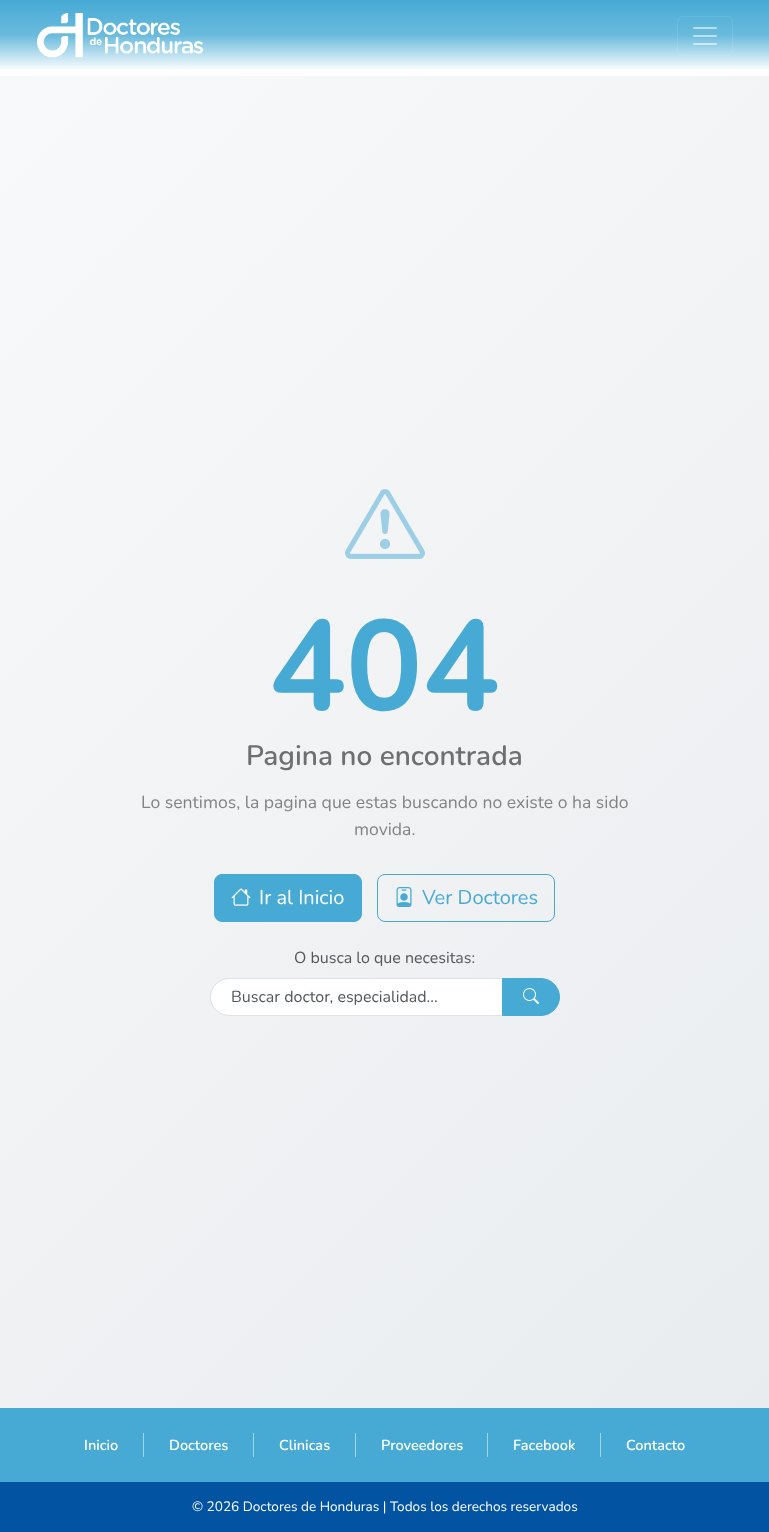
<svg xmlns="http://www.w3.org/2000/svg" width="769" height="1532">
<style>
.a{font:bold 128px Nunito;fill:#46aad5}
.b{font:600 28px Nunito;fill:#6f6f6f}
.c{font:17.6px Nunito;fill:#838383}
.d{font:20px Nunito;fill:#fff}
.e{font:20px Nunito;fill:#46aad5}
.f{font:16px Nunito;fill:#54585c}
.g{font:600 14.5px Nunito;fill:#fff}
.h{font:13.6px Nunito;fill:#fff}
</style>
<defs>
<linearGradient id="g1" gradientUnits="userSpaceOnUse" x1="385" y1="0" x2="385" y2="71"><stop offset="0" stop-color="#46aad5"/><stop offset="0.5" stop-color="#6bbbdd"/><stop offset="1" stop-color="#fff"/></linearGradient>
<linearGradient id="g2" gradientUnits="userSpaceOnUse" x1="-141" y1="217" x2="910" y2="1267"><stop offset="0" stop-color="#f8f9fa"/><stop offset="1" stop-color="#e9ecef"/></linearGradient>
</defs>
<rect width="100%" height="100%" fill="#fff"/>
<path fill="url(#g1)" d="M0 0h769v70H0z"/>
<image href="1.png" x="37" y="13" width="166" height="45"/>
<rect fill="none" stroke="#ffffff1a" x="677.5" y="16.5" width="55" height="39" rx="5.5"/>
<image href="2.png" x="693" y="27" width="24" height="18"/>
<path fill="url(#g2)" d="M0 76h769v1332H0z"/>
<image href="3.png" x="345" y="489" width="80" height="70"/>
<rect fill="#46aad5" stroke="#46aad5" x="214.5" y="874.5" width="147" height="47" rx="7.5"/>
<image href="4.png" x="231" y="888" width="20" height="18"/>
<rect fill="none" stroke="#46aad5" x="377.5" y="874.5" width="177" height="47" rx="7.5"/>
<image href="5.png" x="396" y="887" width="16" height="20"/>
<path fill="#fff" stroke="#dee2e6" d="M229 978.5h273.5v37h-273.5c-10 0-18.5-8.5-18.5-18.5c0-10 8.5-18.5 18.5-18.5z"/>
<path fill="#46aad5" stroke="#46aad5" d="M502.5 978.5h38.5c10 0 18.5 8.5 18.5 18.5c0 10-8.5 18.5-18.5 18.5h-38.5z"/>
<image href="6.png" x="523" y="988" width="16" height="16"/>
<path fill="#46aad5" d="M0 1408h769v74H0z"/>
<path fill="#a3d5ea" d="M143 1433h1v24H143z"/>
<path fill="#a3d5ea" d="M253 1433h1v24H253z"/>
<path fill="#a3d5ea" d="M355 1433h1v24H355z"/>
<path fill="#a3d5ea" d="M487 1433h1v24H487z"/>
<path fill="#a3d5ea" d="M600 1433h1v24H600z"/>
<path fill="#0253a2" d="M0 1482h769v50H0z"/>
<text class="a" x="269" y="710">404</text>
<text class="b" x="246" y="765">Pagina no encontrada</text>
<text class="c" x="141" y="808">Lo sentimos, la pagina que estas buscando no existe o ha sido</text>
<text class="c" x="354" y="835">movida.</text>
<text class="d" x="259" y="904">Ir al Inicio</text>
<text class="e" x="422" y="904">Ver Doctores</text>
<text class="f" x="294" y="963">O busca lo que necesitas:</text>
<text class="f" x="231" y="1002">Buscar doctor, especialidad...</text>
<text class="g" x="84" y="1450">Inicio</text>
<text class="g" x="169" y="1450">Doctores</text>
<text class="g" x="279" y="1450">Clinicas</text>
<text class="g" x="381" y="1450">Proveedores</text>
<text class="g" x="513" y="1450">Facebook</text>
<text class="g" x="626" y="1450">Contacto</text>
<text class="h" x="192" y="1511">© 2026 Doctores de Honduras | Todos los derechos reservados</text>
</svg>
